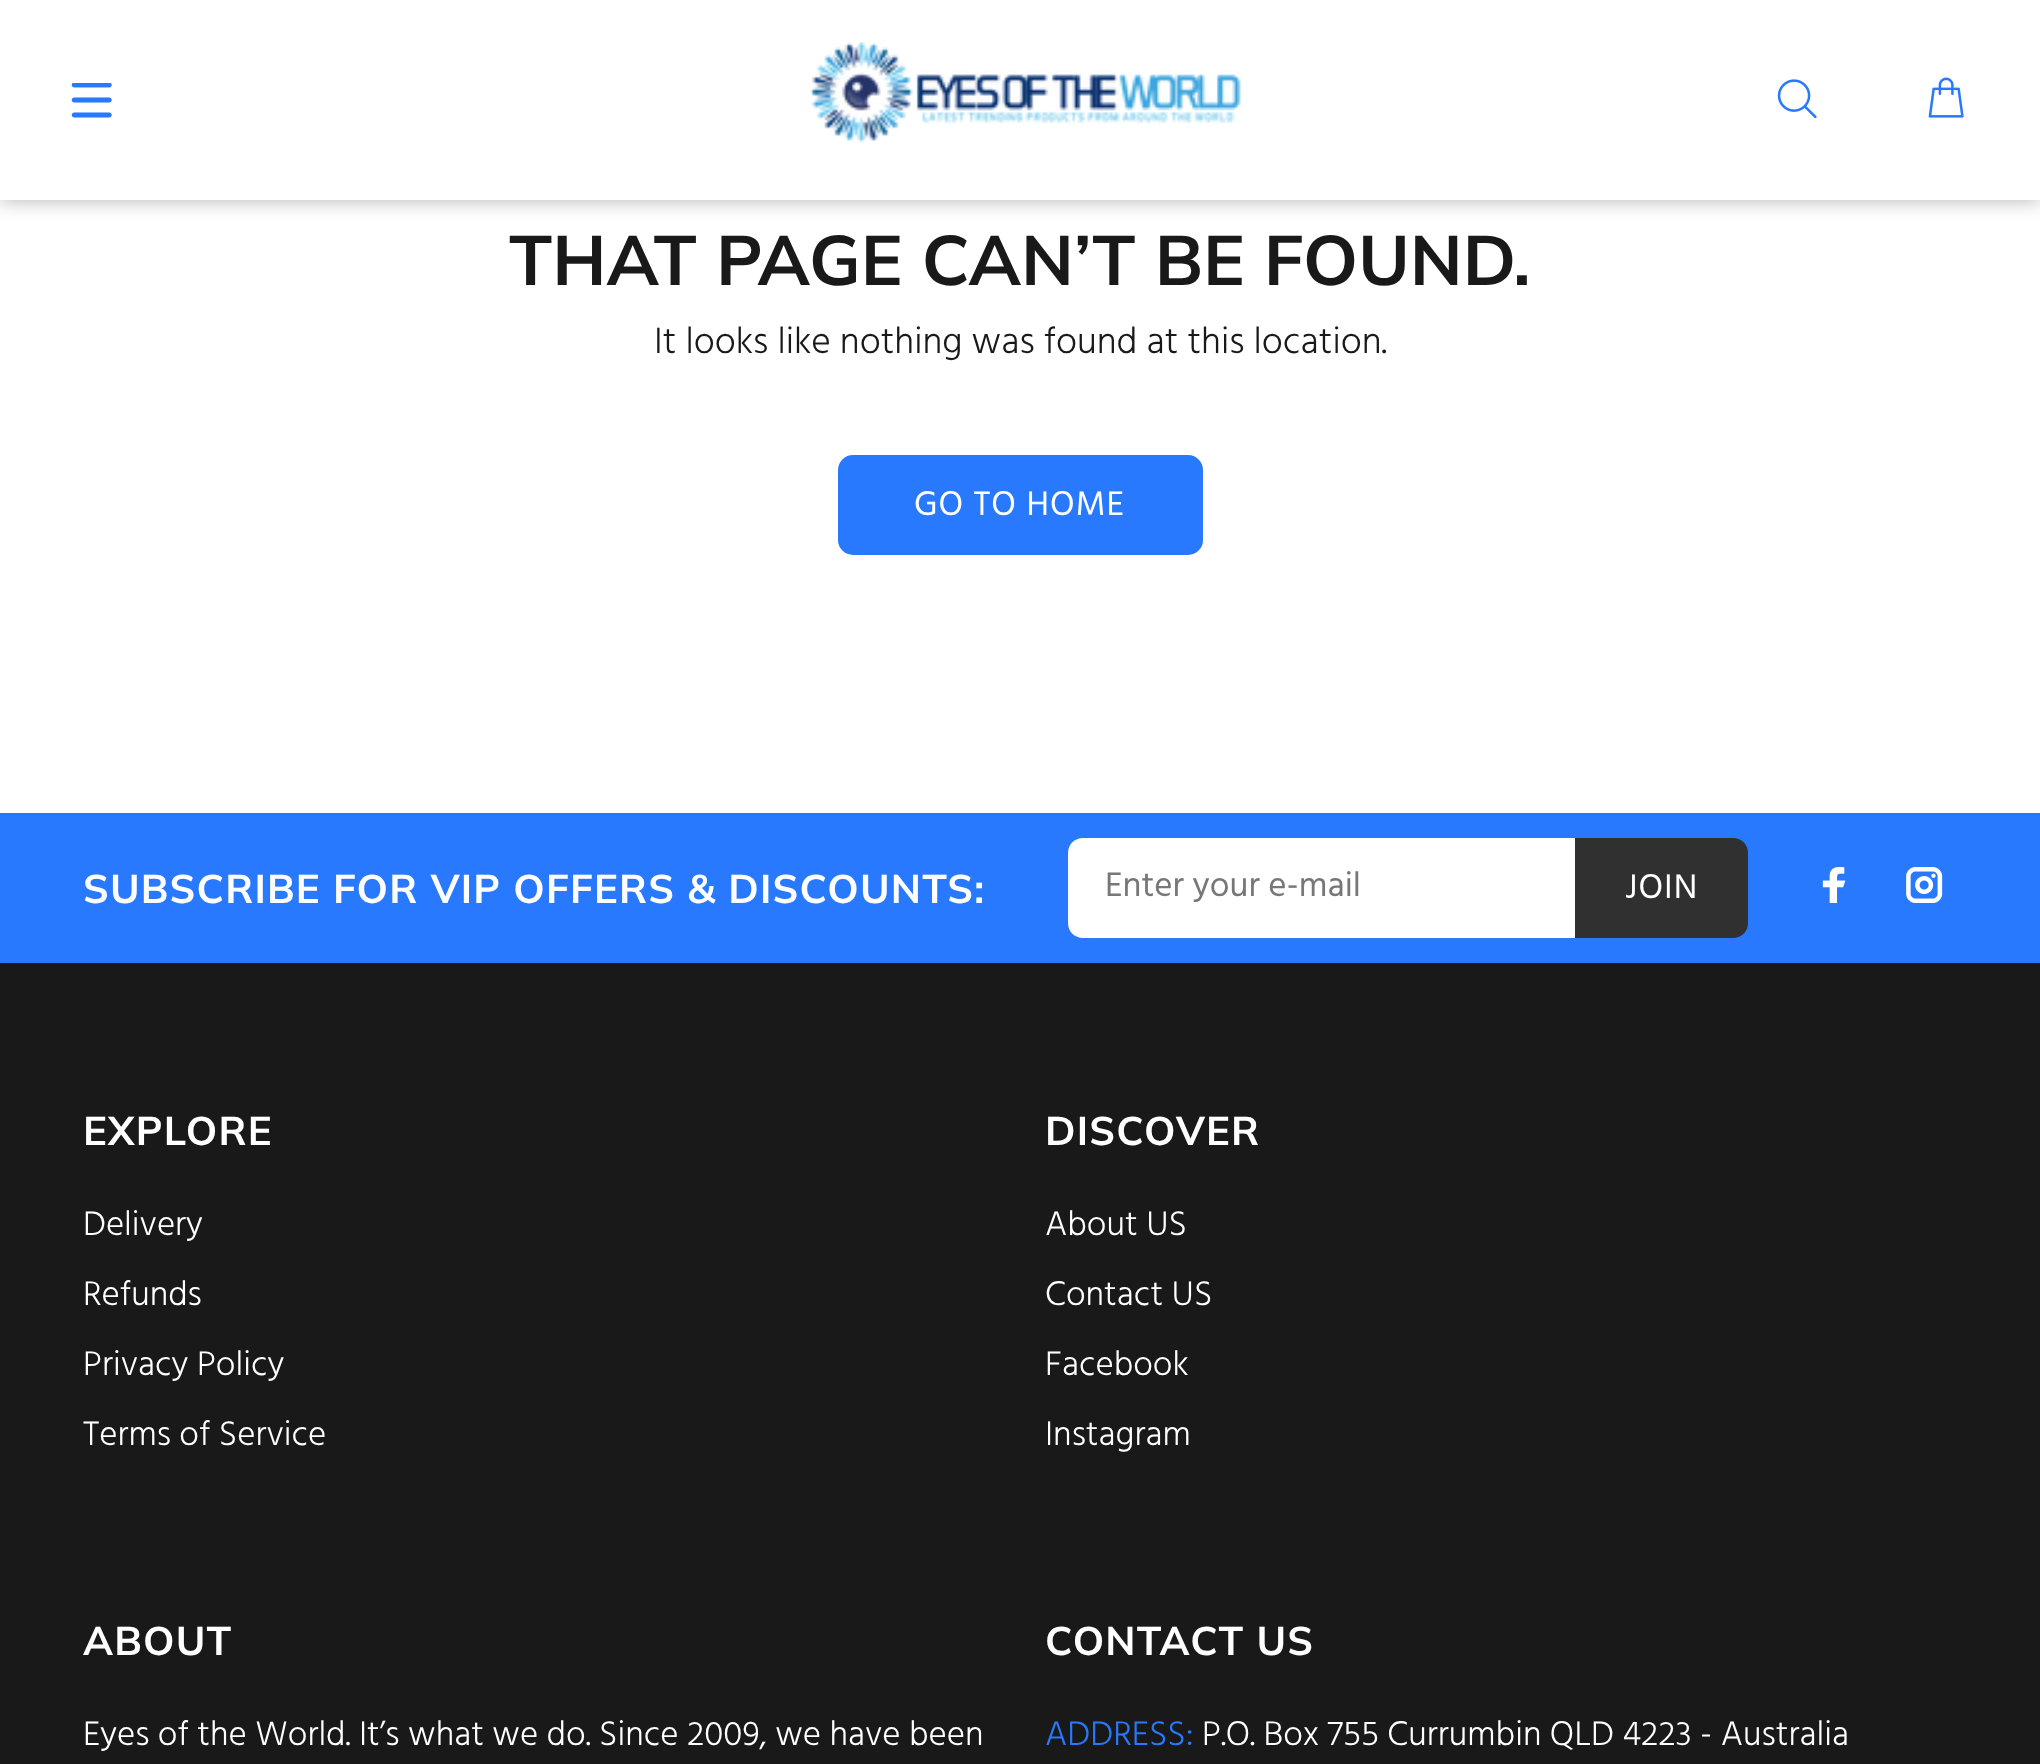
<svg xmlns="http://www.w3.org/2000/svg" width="2040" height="1764">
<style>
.a{font:bold 70px Muli;fill:#191919}
.b{font:300 37.5px Hind;fill:#191919}
.c{font:35px Hind;letter-spacing:1px;fill:#fff}
.d{font:bold 40px Muli;letter-spacing:1.2px;fill:#fff}
.e{font:35px Hind;fill:#777}
.f{font:300 35px Hind;fill:#fff}
.g{font:300 35px Hind;fill:#2879fe}
</style>
<rect width="100%" height="100%" fill="#fff"/>
<path fill="#0000004d" filter="blur(10px)" d="M0 0h2040v200H0z"/>
<path fill="#fff" d="M0 0h2040v200H0z"/>
<image href="1.png" x="71" y="83" width="41" height="35"/>
<image href="2.png" x="810" y="41" width="431" height="103"/>
<image href="3.png" x="1777" y="79" width="40" height="40"/>
<image href="4.png" x="1928" y="77" width="36" height="41"/>
<rect fill="#2879fe" x="838" y="455" width="365" height="100" rx="15"/>
<path fill="#191919" d="M0 963h2040v801H0z"/>
<path fill="#2879fe" d="M0 813h2040v150H0z"/>
<path fill="#fff" d="M1083 838h492v100h-492c-8.5 0-15-6.5-15-15v-70c0-8.5 6.5-15 15-15z"/>
<path fill="#303030" d="M1575 838h158c8.5 0 15 6.5 15 15v70c0 8.5-6.5 15-15 15h-158z"/>
<image href="5.png" x="1822" y="867" width="24" height="36"/>
<image href="6.png" x="1906" y="867" width="37" height="36"/>
<text class="a" x="509" y="285">THAT PAGE CAN’T BE FOUND.</text>
<text class="b" x="654" y="353">It looks like nothing was found at this location.</text>
<text class="c" x="914" y="515">GO TO HOME</text>
<text class="d" x="83" y="903">SUBSCRIBE FOR VIP OFFERS &amp; DISCOUNTS:</text>
<text class="e" x="1105" y="896">Enter your e-mail</text>
<text class="c" x="1625" y="898">JOIN</text>
<text class="d" x="83" y="1145">EXPLORE</text>
<text class="f" x="83" y="1235">Delivery</text>
<text class="f" x="83" y="1305">Refunds</text>
<text class="f" x="83" y="1375">Privacy Policy</text>
<text class="f" x="83" y="1445">Terms of Service</text>
<text class="d" x="1045" y="1145">DISCOVER</text>
<text class="f" x="1045" y="1235">About US</text>
<text class="f" x="1045" y="1305">Contact US</text>
<text class="f" x="1045" y="1375">Facebook</text>
<text class="f" x="1045" y="1445">Instagram</text>
<text class="d" x="83" y="1655">ABOUT</text>
<text class="f" x="83" y="1745">Eyes of the World. It’s what we do. Since 2009, we have been</text>
<text class="d" x="1045" y="1655">CONTACT US</text>
<text class="g" x="1045" y="1745">ADDRESS:</text>
<text class="f" x="1202" y="1745">P.O. Box 755 Currumbin QLD 4223 - Australia</text>
</svg>
